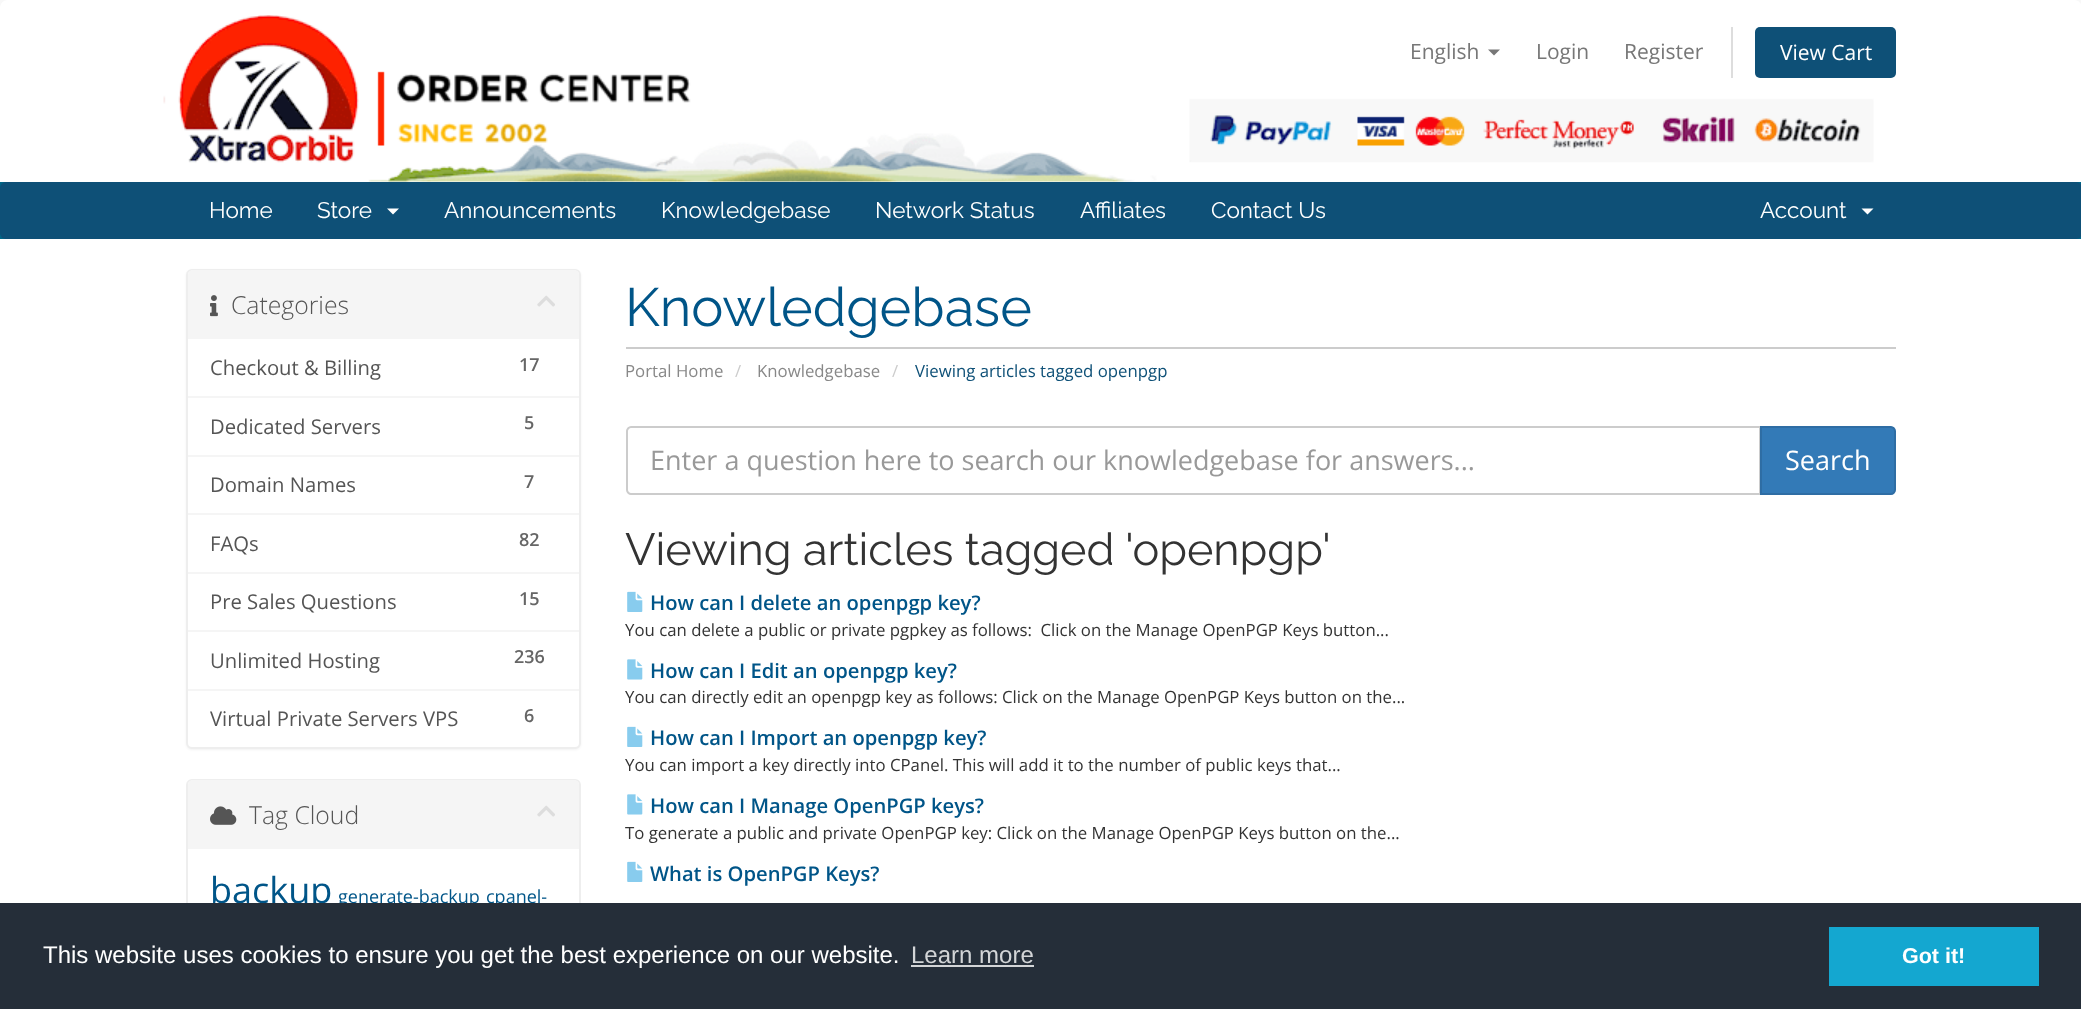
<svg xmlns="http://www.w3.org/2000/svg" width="2081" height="1009">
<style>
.a{font:21px Open Sans;fill:#777}
.b{font:21px Open Sans;fill:#fff}
.c{font:22.5px Raleway;fill:#fff}
.d{font:300 24.75px Open Sans;fill:#555}
.e{font:20.25px Open Sans;fill:#555}
.f{font:600 18px Open Sans;fill:#666}
.g{font:54px Raleway;fill:#058}
.h{font:16.8px Open Sans;fill:#888}
.i{font:16.8px Open Sans;fill:#ccc}
.j{font:16.8px Open Sans;fill:#0e5077}
.k{font:36px Open Sans;fill:#058}
.l{font:18px Open Sans;fill:#058}
.m{font:27px Open Sans;fill:#999}
.n{font:27px Open Sans;fill:#fff}
.o{font:45px Raleway;fill:#333}
.p{font:600 20.2px Open Sans;fill:#058}
.q{font:16.8px Open Sans;fill:#333}
.r{font:24px Liberation Sans;fill:#fff}
.s{font:24px Liberation Sans;fill:#d3d5d7}
.t{font:bold 21.5px Liberation Sans;fill:#fff}
</style>
<rect width="100%" height="100%" fill="#f8f8f8"/>
<path fill="#fff" d="M8 0h2066c4.5 0 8 3.5 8 8v174h-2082v-174c0-4.5 3.5-8 8-8z"/>
<image href="1.png" x="163" y="15" width="1711" height="167"/>
<path fill="#777" d="M1488 49.5h12l-6 6z"/>
<path fill="#ddd" d="M1731 27h2v51H1731z"/>
<rect fill="#0e5077" x="1755" y="27" width="141" height="51" rx="5"/>
<path fill="#006687" d="M0 182h2081v57H0z"/>
<rect fill="#0e5077" y="182" width="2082" height="57" rx="6"/>
<path fill="#fff" d="M387 208.5h12l-6 6z"/>
<path fill="#fff" d="M1861.5 208.5h12l-6 6z"/>
<path fill="#fff" d="M0 239h2081v664H0z"/>
<rect fill="#0000000d" filter="blur(1px)" x="186" y="270" width="395" height="480" rx="6"/>
<rect fill="#fff" stroke="#eee" stroke-width="2" x="187" y="270" width="393" height="478" rx="5"/>
<path fill="#f5f5f5" d="M193 270h381c3 0 5 2 5 5v64h-391v-64c0-3 2-5 5-5z"/>
<image href="2.png" x="210" y="295" width="8" height="22"/>
<image href="3.png" x="537" y="295" width="18" height="12"/>
<path fill="#f5f5f5" d="M188 396h391v2H188z"/>
<path fill="#f5f5f5" d="M188 455h391v2H188z"/>
<path fill="#f5f5f5" d="M188 513h391v2H188z"/>
<path fill="#f5f5f5" d="M188 572h391v2H188z"/>
<path fill="#f5f5f5" d="M188 630h391v2H188z"/>
<path fill="#f5f5f5" d="M188 689h391v2H188z"/>
<path fill="#ccc" d="M626 347h1270v2H626z"/>
<rect fill="#fff" stroke="#eee" stroke-width="2" x="187" y="780" width="393" height="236" rx="5"/>
<path fill="#f5f5f5" d="M193 780h381c3 0 5 2 5 5v64h-391v-64c0-3 2-5 5-5z"/>
<image href="4.png" x="210" y="806" width="27" height="19"/>
<image href="3.png" x="537" y="805" width="18" height="12"/>
<path fill="none" stroke="#ccc" stroke-width="2" d="M631 427h1129v67h-1129c-2 0-4-2-4-4v-59c0-2 2-4 4-4z"/>
<path fill="#337ab7" stroke="#2e6da4" stroke-width="2" d="M1761 427h130c2 0 4 2 4 4v59c0 2-2 4-4 4h-130z"/>
<image href="5.png" x="627" y="591" width="16" height="21"/>
<image href="6.png" x="627" y="659" width="16" height="21"/>
<image href="5.png" x="627" y="726" width="16" height="21"/>
<image href="6.png" x="627" y="794" width="16" height="21"/>
<image href="5.png" x="627" y="861" width="16" height="21"/>
<text class="a" x="1410" y="59">English</text>
<text class="a" x="1536" y="59">Login</text>
<text class="a" x="1624" y="59">Register</text>
<text class="b" x="1780" y="60">View Cart</text>
<text class="c" x="209" y="218">Home</text>
<text class="c" x="317" y="218">Store</text>
<text class="c" x="444" y="218">Announcements</text>
<text class="c" x="661" y="218">Knowledgebase</text>
<text class="c" x="875" y="218">Network Status</text>
<text class="c" x="1080" y="218">Affiliates</text>
<text class="c" x="1211" y="218">Contact Us</text>
<text class="c" x="1760" y="218">Account</text>
<text class="d" x="231" y="314">Categories</text>
<text class="e" x="210" y="375">Checkout &amp; Billing</text>
<text class="f" x="519" y="371">17</text>
<text class="e" x="210" y="434">Dedicated Servers</text>
<text class="f" x="524" y="429">5</text>
<text class="e" x="210" y="492">Domain Names</text>
<text class="f" x="524" y="488">7</text>
<text class="e" x="210" y="551">FAQs</text>
<text class="f" x="519" y="546">82</text>
<text class="e" x="210" y="609">Pre Sales Questions</text>
<text class="f" x="519" y="605">15</text>
<text class="e" x="210" y="668">Unlimited Hosting</text>
<text class="f" x="514" y="663">236</text>
<text class="e" x="210" y="726">Virtual Private Servers VPS</text>
<text class="f" x="524" y="722">6</text>
<text class="g" x="625" y="326">Knowledgebase</text>
<text class="h" x="625" y="377">Portal Home</text>
<text class="i" x="735" y="377">/</text>
<text class="h" x="757" y="377">Knowledgebase</text>
<text class="i" x="892" y="377">/</text>
<text class="j" x="915" y="377">Viewing articles tagged openpgp</text>
<text class="d" x="249" y="824">Tag Cloud</text>
<text class="k" x="210" y="903">backup</text>
<text class="l" x="338" y="903">generate-backup</text>
<text class="l" x="486" y="903">cpanel-</text>
<text class="m" x="650" y="470">Enter a question here to search our knowledgebase for answers...</text>
<text class="n" x="1785" y="470">Search</text>
<text class="o" x="625" y="565">Viewing articles tagged 'openpgp'</text>
<text class="p" x="650" y="610">How can I delete an openpgp key?</text>
<text class="q" xml:space="preserve" x="625" y="636">You can delete a public or private pgpkey as follows:  Click on the Manage OpenPGP Keys button...</text>
<text class="p" x="650" y="678">How can I Edit an openpgp key?</text>
<text class="q" x="625" y="703">You can directly edit an openpgp key as follows: Click on the Manage OpenPGP Keys button on the...</text>
<text class="p" x="650" y="745">How can I Import an openpgp key?</text>
<text class="q" x="625" y="771">You can import a key directly into CPanel. This will add it to the number of public keys that...</text>
<text class="p" x="650" y="813">How can I Manage OpenPGP keys?</text>
<text class="q" x="625" y="839">To generate a public and private OpenPGP key: Click on the Manage OpenPGP Keys button on the...</text>
<text class="p" x="650" y="881">What is OpenPGP Keys?</text>
<path fill="#252e39" d="M0 903h2081v106H0z"/>
<text class="r" x="43" y="963">This website uses cookies to ensure you get the best experience on our website.</text>
<text class="s" x="911" y="963">Learn more</text>
<path fill="#d3d5d7" d="M911 965h123v2H911z"/>
<path fill="#14a7d0" d="M1829 927h210v59H1829z"/>
<text class="t" x="1902" y="963">Got it!</text>
</svg>
